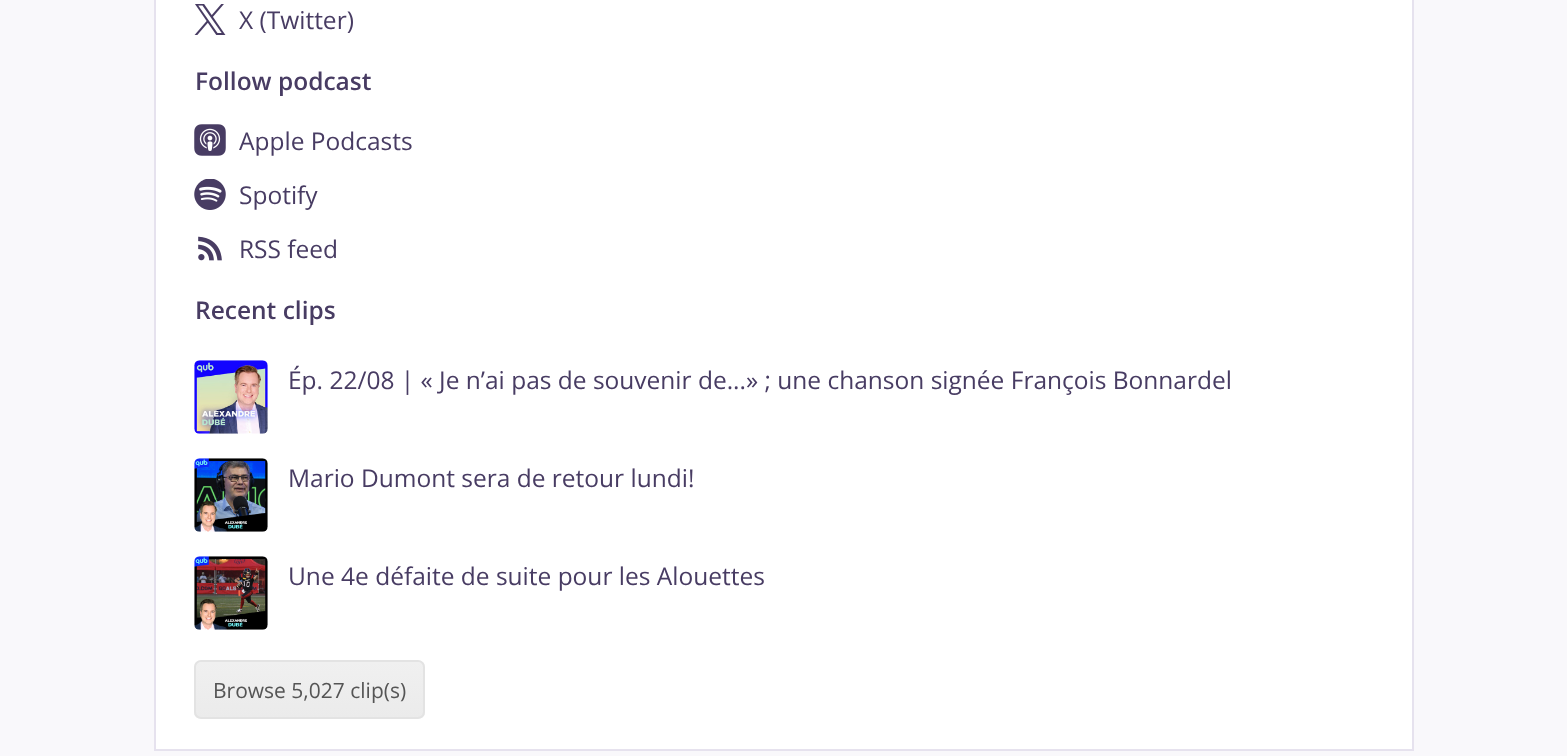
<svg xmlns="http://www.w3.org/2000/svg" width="1567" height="756">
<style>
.a{font:24.5px Open Sans;fill:#483c63}
.b{font:600 24.5px Open Sans;fill:#483c63}
.c{font:21px Open Sans;fill:#555}
</style>
<defs>
<clipPath id="clip1"><rect x="194" y="660" width="231" height="59" rx="7"/></clipPath>
<linearGradient id="g1" gradientUnits="userSpaceOnUse" x1="310" y1="662" x2="310" y2="718"><stop offset="0" stop-color="#f0f0f0"/><stop offset="1" stop-color="#ebebeb"/></linearGradient>
</defs>
<rect width="100%" height="100%" fill="#f9f8fb"/>
<path fill="#fff" stroke="#e6e2ee" stroke-width="2" d="M155 -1h1258v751H155z"/>
<image href="1.png" x="194" y="4" width="32" height="31"/>
<image href="2.png" x="194" y="124" width="32" height="32"/>
<image href="3.png" x="194" y="179" width="32" height="31"/>
<image href="4.png" x="198" y="236" width="24" height="25"/>
<image href="5.png" x="194" y="360" width="74" height="74"/>
<image href="6.png" x="194" y="458" width="74" height="74"/>
<image href="7.png" x="194" y="556" width="74" height="74"/>
<g clip-path="url(#clip1)">
<path fill="url(#g1)" d="M194 662h231v56H194z"/>
</g>
<rect fill="none" stroke="#e3e3e3" stroke-width="2" x="195" y="661" width="229" height="57" rx="6"/>
<text class="a" x="239" y="29">X (Twitter)</text>
<text class="b" x="195" y="90">Follow podcast</text>
<text class="a" x="239" y="150">Apple Podcasts</text>
<text class="a" x="239" y="204">Spotify</text>
<text class="a" x="239" y="258">RSS feed</text>
<text class="b" x="195" y="319">Recent clips</text>
<text class="a" x="288" y="389">Ép. 22/08 | « Je n’ai pas de souvenir de...» ; une chanson signée François Bonnardel</text>
<text class="a" x="288" y="487">Mario Dumont sera de retour lundi!</text>
<text class="a" x="288" y="585">Une 4e défaite de suite pour les Alouettes</text>
<text class="c" x="213" y="698">Browse 5,027 clip(s)</text>
</svg>
